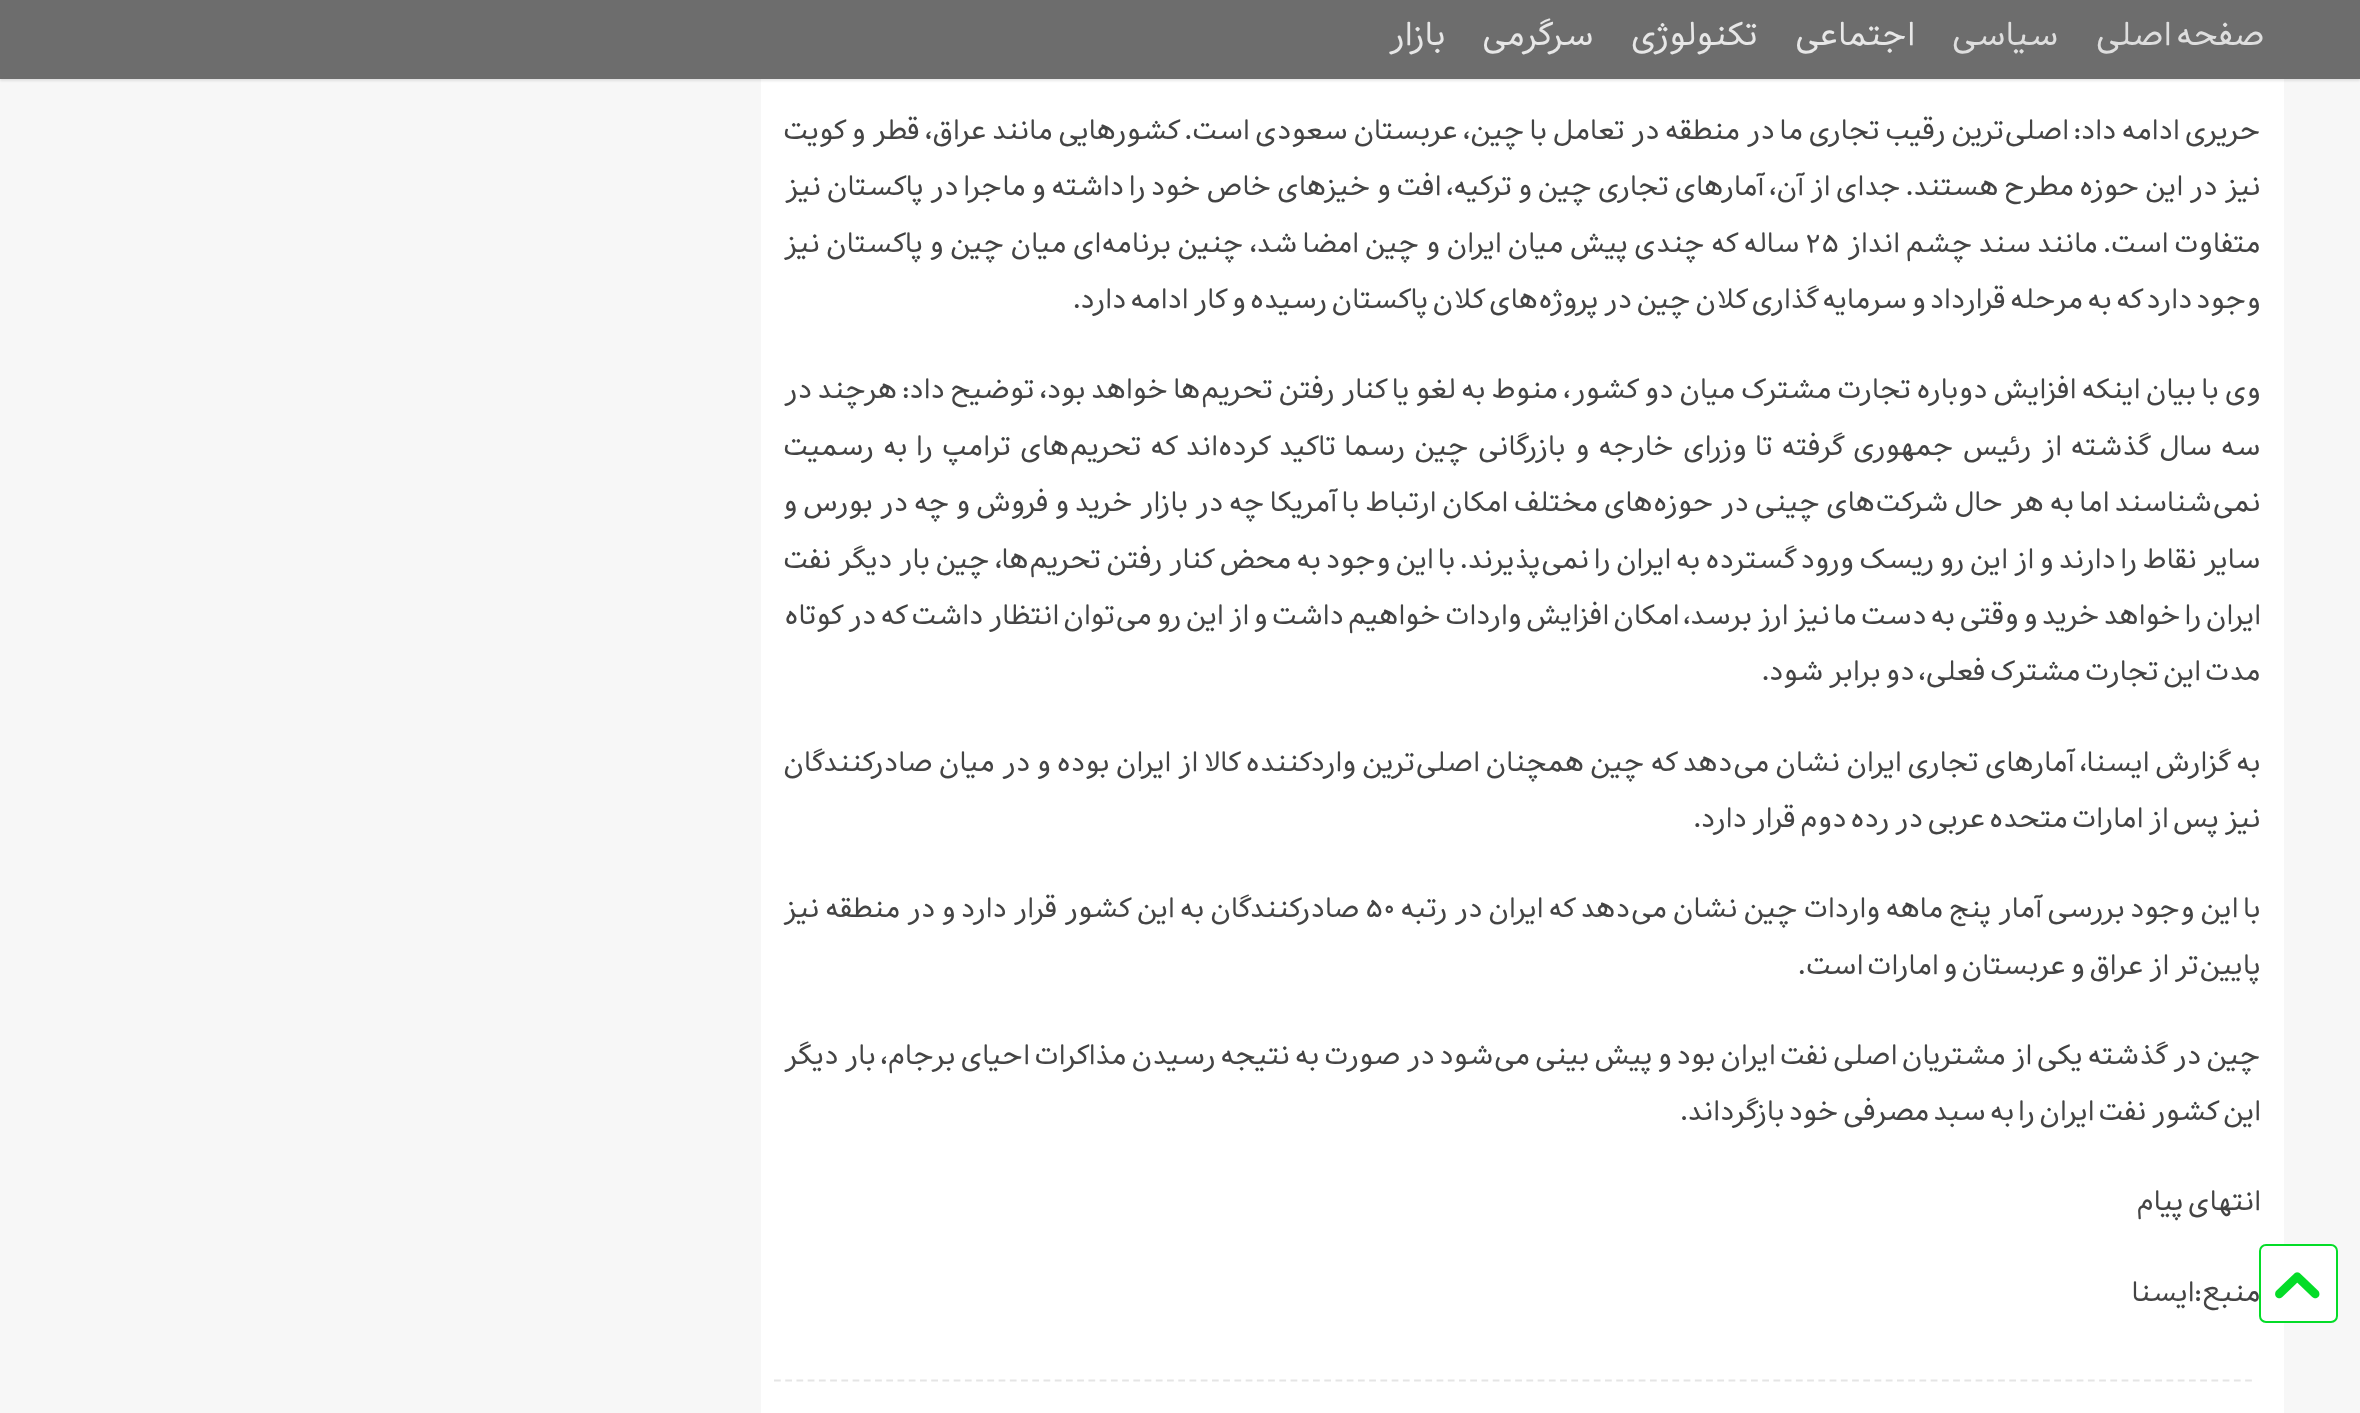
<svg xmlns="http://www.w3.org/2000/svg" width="2360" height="1413">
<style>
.a{font:35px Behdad;direction:rtl;fill:#dedede}
.b{font:35px Behdad;direction:rtl;fill:#e7e7e7}
.c{font:29.7px Behdad;direction:rtl;fill:#444}
.d{font:29.7px Behdad;fill:#444}
</style>
<defs>
<clipPath id="clip1"><path d="M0 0h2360v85h-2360zm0 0h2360v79h-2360z" clip-rule="evenodd"/></clipPath>
</defs>
<rect width="100%" height="100%" fill="#f7f7f7"/>
<path fill="#fff" d="M761 0h1523v1413H761z"/>
<g clip-path="url(#clip1)">
<path fill="#00000017" filter="blur(1px)" d="M0 2h2360v79H0z"/>
</g>
<path fill="#646464f0" d="M0 0h2360v79H0z"/>
<rect fill="#fff" stroke="#04dc28" stroke-width="2" x="2260" y="1245" width="77" height="77" rx="6"/>
<image href="1.png" x="2275" y="1272" width="45" height="27"/>
<path fill="none" stroke="#e5e5e5" stroke-width="2.2" stroke-dasharray="6.75 4.48" d="M774 1380.5h1478"/>
<text class="a" x="2265" y="45">صفحه اصلی</text>
<text class="a" x="2059" y="45">سیاسی</text>
<text class="b" x="1915" y="45">اجتماعی</text>
<text class="b" x="1758" y="45">تکنولوژی</text>
<text class="b" x="1594" y="45">سرگرمی</text>
<text class="b" x="1446" y="45">بازار</text>
<text class="c" x="2261" y="139" word-spacing="1.2">حریری ادامه داد: اصلی‌ترین رقیب تجاری ما در منطقه در تعامل با چین، عربستان سعودی است. کشورهایی مانند عراق، قطر و کویت</text>
<text class="c" x="2261" y="195" word-spacing="1.25">نیز در این حوزه مطرح هستند. جدای از آن، آمارهای تجاری چین و ترکیه، افت و خیزهای خاص خود را داشته و ماجرا در پاکستان نیز</text>
<text class="c" x="2261" y="252" word-spacing="1.9">متفاوت است. مانند سند چشم انداز</text>
<text class="d" x="1805" y="252">۲۵</text>
<text class="c" x="1800" y="252" word-spacing="1.9">ساله که چندی پیش میان ایران و چین امضا شد، چنین برنامه‌ای میان چین و پاکستان نیز</text>
<text class="c" x="2261" y="308">وجود دارد که به مرحله قرارداد و سرمایه گذاری کلان چین در پروژه‌های کلان پاکستان رسیده و کار ادامه دارد.</text>
<text class="c" x="2261" y="398" word-spacing="1.4">وی با بیان اینکه افزایش دوباره تجارت مشترک میان دو کشور، منوط به لغو یا کنار رفتن تحریم‌ها خواهد بود، توضیح داد: هرچند در</text>
<text class="c" x="2261" y="455" word-spacing="4.8">سه سال گذشته از رئیس جمهوری گرفته تا وزرای خارجه و بازرگانی چین رسما تاکید کرده‌اند که تحریم‌های ترامپ را به رسمیت</text>
<text class="c" x="2261" y="511" word-spacing="1.5">نمی‌شناسند اما به هر حال شرکت‌های چینی در حوزه‌های مختلف امکان ارتباط با آمریکا چه در بازار خرید و فروش و چه در بورس و</text>
<text class="c" x="2261" y="568" word-spacing="0.95">سایر نقاط را دارند و از این رو ریسک ورود گسترده به ایران را نمی‌پذیرند. با این وجود به محض کنار رفتن تحریم‌ها، چین بار دیگر نفت</text>
<text class="c" x="2261" y="624">ایران را خواهد خرید و وقتی به دست ما نیز ارز برسد، امکان افزایش واردات خواهیم داشت و از این رو می‌توان انتظار داشت که در کوتاه</text>
<text class="c" x="2261" y="680">مدت این تجارت مشترک فعلی، دو برابر شود.</text>
<text class="c" x="2261" y="771" word-spacing="1.75">به گزارش ایسنا، آمارهای تجاری ایران نشان می‌دهد که چین همچنان اصلی‌ترین واردکننده کالا از ایران بوده و در میان صادرکنندگان</text>
<text class="c" x="2261" y="827">نیز پس از امارات متحده عربی در رده دوم قرار دارد.</text>
<text class="c" x="2261" y="917" word-spacing="1.4">با این وجود بررسی آمار پنج ماهه واردات چین نشان می‌دهد که ایران در رتبه</text>
<text class="d" x="1365" y="917">۵۰</text>
<text class="c" x="1360" y="917" word-spacing="1.4">صادرکنندگان به این کشور قرار دارد و در منطقه نیز</text>
<text class="c" x="2261" y="974">پایین‌تر از عراق و عربستان و امارات است.</text>
<text class="c" x="2261" y="1064" word-spacing="0.6">چین در گذشته یکی از مشتریان اصلی نفت ایران بود و پیش بینی می‌شود در صورت به نتیجه رسیدن مذاکرات احیای برجام، بار دیگر</text>
<text class="c" x="2261" y="1120">این کشور نفت ایران را به سبد مصرفی خود بازگرداند.</text>
<text class="c" x="2261" y="1210">انتهای پیام</text>
<text class="c" x="2261" y="1301">منبع:ایسنا</text>
</svg>
